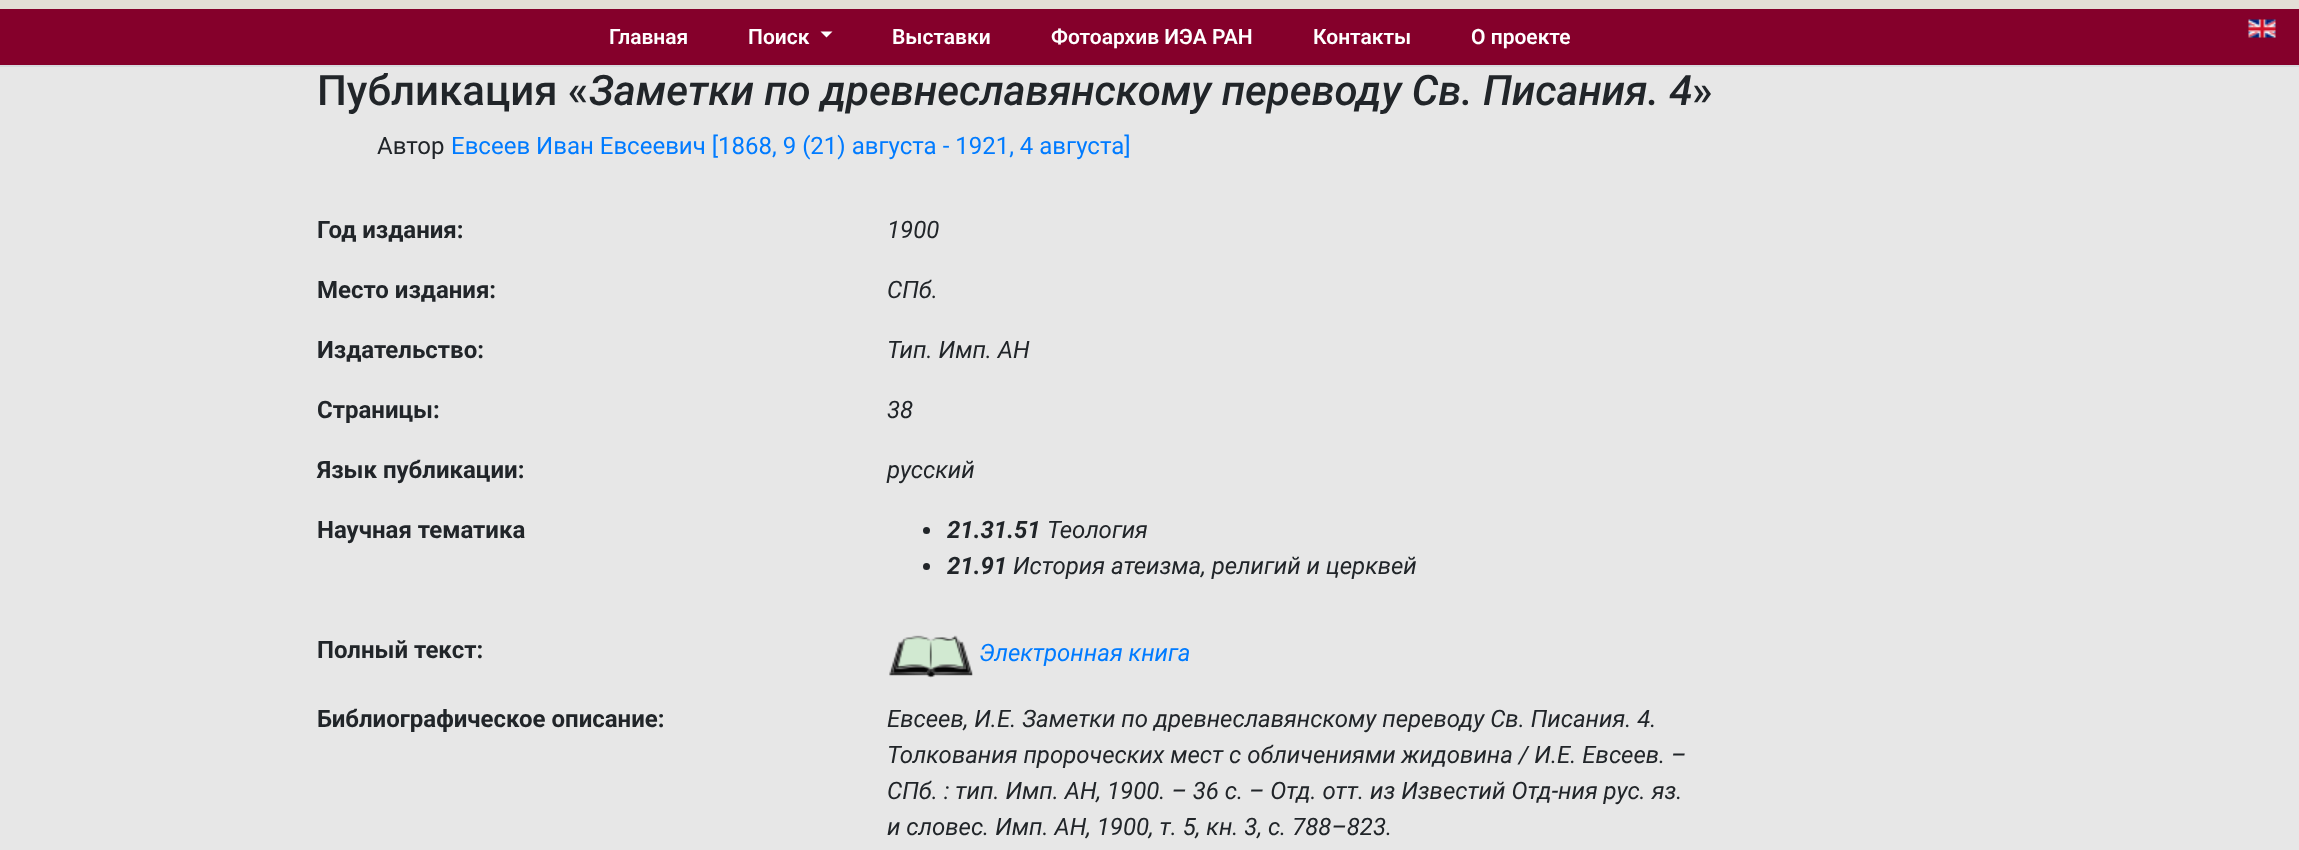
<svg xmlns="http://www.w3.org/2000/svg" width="2299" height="850">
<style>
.a{font:600 21px Roboto;fill:#fff}
.b{font:500 42px Roboto;fill:#212529}
.c{font:italic 500 42px Roboto;fill:#212529}
.d{font:24px Roboto;fill:#212529}
.e{font:24px Roboto;fill:#007bff}
.f{font:bold 24px Roboto;fill:#212529}
.g{font:italic 24px Roboto;fill:#212529}
.h{font:italic bold 24px Roboto;fill:#212529}
.i{font:italic 24px Roboto;fill:#007bff}
</style>
<rect width="100%" height="100%" fill="#e7e7e7"/>
<path fill="#e3ded6" d="M0 0h2299v9H0z"/>
<path fill="#85002b" d="M0 9h2299v56H0z"/>
<path fill="#d7dadd" d="M0 65h2299v2H0z"/>
<path fill="#fff" d="M820.5 31.5h12l-6 6z"/>
<image href="1.png" x="2248" y="19" width="28" height="19"/>
<circle fill="#212529" cx="926.5" cy="530.5" r="3.5"/>
<circle fill="#212529" cx="926.5" cy="566.5" r="3.5"/>
<image href="2.png" x="889" y="635" width="84" height="43"/>
<text class="a" x="609" y="44">Главная</text>
<text class="a" x="748" y="44">Поиск</text>
<text class="a" x="892" y="44">Выставки</text>
<text class="a" x="1051" y="44">Фотоархив ИЭА РАН</text>
<text class="a" x="1313" y="44">Контакты</text>
<text class="a" x="1471" y="44">О проекте</text>
<text class="b" x="317" y="105">Публикация «</text>
<text class="c" x="589" y="105">Заметки по древнеславянскому переводу Св. Писания. 4</text>
<text class="b" x="1692" y="105">»</text>
<text class="d" x="377" y="154">Автор</text>
<text class="e" x="451" y="154">Евсеев Иван Евсеевич [1868, 9 (21) августа - 1921, 4 августа]</text>
<text class="f" x="317" y="238">Год издания:</text>
<text class="g" x="887" y="238">1900</text>
<text class="f" x="317" y="298">Место издания:</text>
<text class="g" x="887" y="298">СПб.</text>
<text class="f" x="317" y="358">Издательство:</text>
<text class="g" x="887" y="358">Тип. Имп. АН</text>
<text class="f" x="317" y="418">Страницы:</text>
<text class="g" x="887" y="418">38</text>
<text class="f" x="317" y="478">Язык публикации:</text>
<text class="g" x="887" y="478">русский</text>
<text class="f" x="317" y="538">Научная тематика</text>
<text class="h" x="947" y="538">21.31.51</text>
<text class="g" x="1047" y="538">Теология</text>
<text class="h" x="947" y="574">21.91</text>
<text class="g" x="1013" y="574">История атеизма, религий и церквей</text>
<text class="f" x="317" y="658">Полный текст:</text>
<text class="i" x="979" y="661">Электронная книга</text>
<text class="f" x="317" y="727">Библиографическое описание:</text>
<text class="g" x="887" y="727">Евсеев, И.Е. Заметки по древнеславянскому переводу Св. Писания. 4.</text>
<text class="g" x="887" y="763">Толкования пророческих мест с обличениями жидовина / И.Е. Евсеев. –</text>
<text class="g" x="887" y="799">СПб. : тип. Имп. АН, 1900. – 36 с. – Отд. отт. из Известий Отд-ния рус. яз.</text>
<text class="g" x="887" y="835">и словес. Имп. АН, 1900, т. 5, кн. 3, с. 788–823.</text>
</svg>
